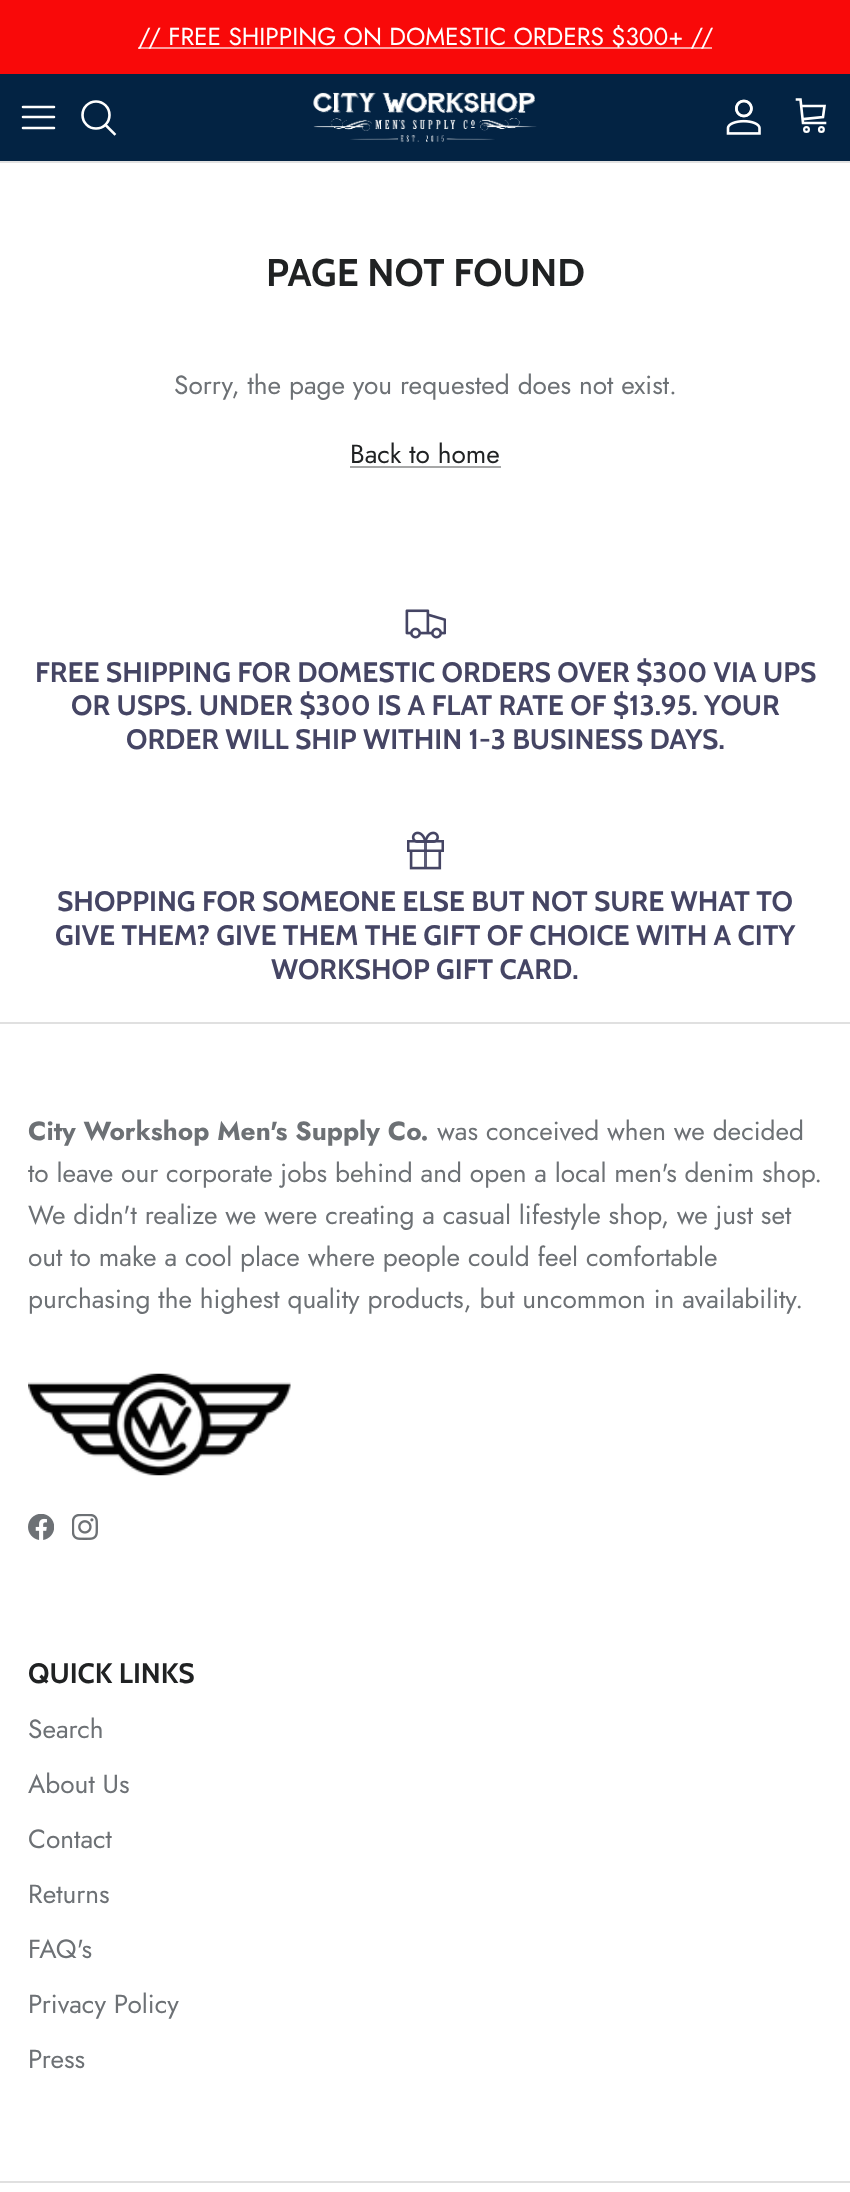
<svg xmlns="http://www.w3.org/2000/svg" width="850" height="2192">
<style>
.a{font:24.5px Jost;fill:#fff}
.b{font:bold 38.5px Cabin;fill:#202223}
.c{font:26.25px Jost;fill:#6d7175}
.d{font:26.25px Jost;fill:#202223}
.e{font:bold 28.2px Cabin;fill:#454564}
.f{font:bold 26.25px Jost;fill:#6d7175}
.g{font:bold 28.2px Cabin;fill:#202223}
</style>
<rect width="100%" height="100%" fill="#fff"/>
<path fill="#f90909" d="M0 0h850v74H0z"/>
<path fill="#fd9d9d" d="M138 47h574v2H138z"/>
<path fill="#032343" d="M0 74h850v87H0z"/>
<path fill="#e2e2e2" d="M0 161h850v2H0z"/>
<path fill="none" stroke="#fff" stroke-width="2.6" stroke-linecap="round" stroke-linejoin="round" d="M23 117h31m-31-10h31m-31 21h31"/>
<circle fill="none" stroke="#fff" stroke-width="2.6" cx="96" cy="115" r="13.5"/>
<path fill="none" stroke="#fff" stroke-width="2.6" stroke-linecap="square" d="M106.5 126l8 8"/>
<image href="1.png" x="313" y="92" width="224" height="50"/>
<image href="2.png" x="726" y="99" width="35" height="36"/>
<path fill="none" stroke="#fff" stroke-width="2.6" stroke-linecap="square" d="M797 99.5h3.5l2.5 23.5h22m-23-17h22.5l-1.5 11l-18.5 2"/>
<circle fill="none" stroke="#fff" stroke-width="2.2" cx="806.5" cy="129.5" r="2.4"/>
<circle fill="none" stroke="#fff" stroke-width="2.2" cx="821.4" cy="129.5" r="2.4"/>
<path fill="#a6a7a7" d="M350 466h151v2H350z"/>
<image href="3.png" x="405" y="609" width="41" height="30"/>
<image href="4.png" x="407" y="831" width="37" height="39"/>
<path fill="#e0e0e0" d="M0 1022h850v2H0z"/>
<image href="5.png" x="28" y="1373" width="263" height="103"/>
<image href="6.png" x="28" y="1514" width="26" height="26"/>
<image href="7.png" x="72" y="1514" width="26" height="26"/>
<path fill="#e0e0e0" d="M0 2181h850v2H0z"/>
<text class="a" x="138" y="45">// FREE SHIPPING ON DOMESTIC ORDERS $300+ //</text>
<text class="b" x="266" y="286">PAGE NOT FOUND</text>
<text class="c" x="174" y="394">Sorry, the page you requested does not exist.</text>
<text class="d" x="350" y="463">Back to home</text>
<text class="e" x="35" y="682">FREE SHIPPING FOR DOMESTIC ORDERS OVER $300 VIA UPS</text>
<text class="e" x="71" y="715">OR USPS. UNDER $300 IS A FLAT RATE OF $13.95. YOUR</text>
<text class="e" x="126" y="749">ORDER WILL SHIP WITHIN 1-3 BUSINESS DAYS.</text>
<text class="e" x="57" y="911">SHOPPING FOR SOMEONE ELSE BUT NOT SURE WHAT TO</text>
<text class="e" x="55" y="945">GIVE THEM? GIVE THEM THE GIFT OF CHOICE WITH A CITY</text>
<text class="e" x="271" y="979">WORKSHOP GIFT CARD.</text>
<text class="f" x="28" y="1140">City Workshop Men's Supply Co.</text>
<text class="c" x="437" y="1140">was conceived when we decided</text>
<text class="c" x="28" y="1182">to leave our corporate jobs behind and open a local men's denim shop.</text>
<text class="c" x="28" y="1224">We didn't realize we were creating a casual lifestyle shop, we just set</text>
<text class="c" x="28" y="1266">out to make a cool place where people could feel comfortable</text>
<text class="c" x="28" y="1308">purchasing the highest quality products, but uncommon in availability.</text>
<text class="g" x="28" y="1683">QUICK LINKS</text>
<text class="c" x="28" y="1738">Search</text>
<text class="c" x="28" y="1793">About Us</text>
<text class="c" x="28" y="1848">Contact</text>
<text class="c" x="28" y="1903">Returns</text>
<text class="c" x="28" y="1958">FAQ's</text>
<text class="c" x="28" y="2013">Privacy Policy</text>
<text class="c" x="28" y="2068">Press</text>
</svg>
